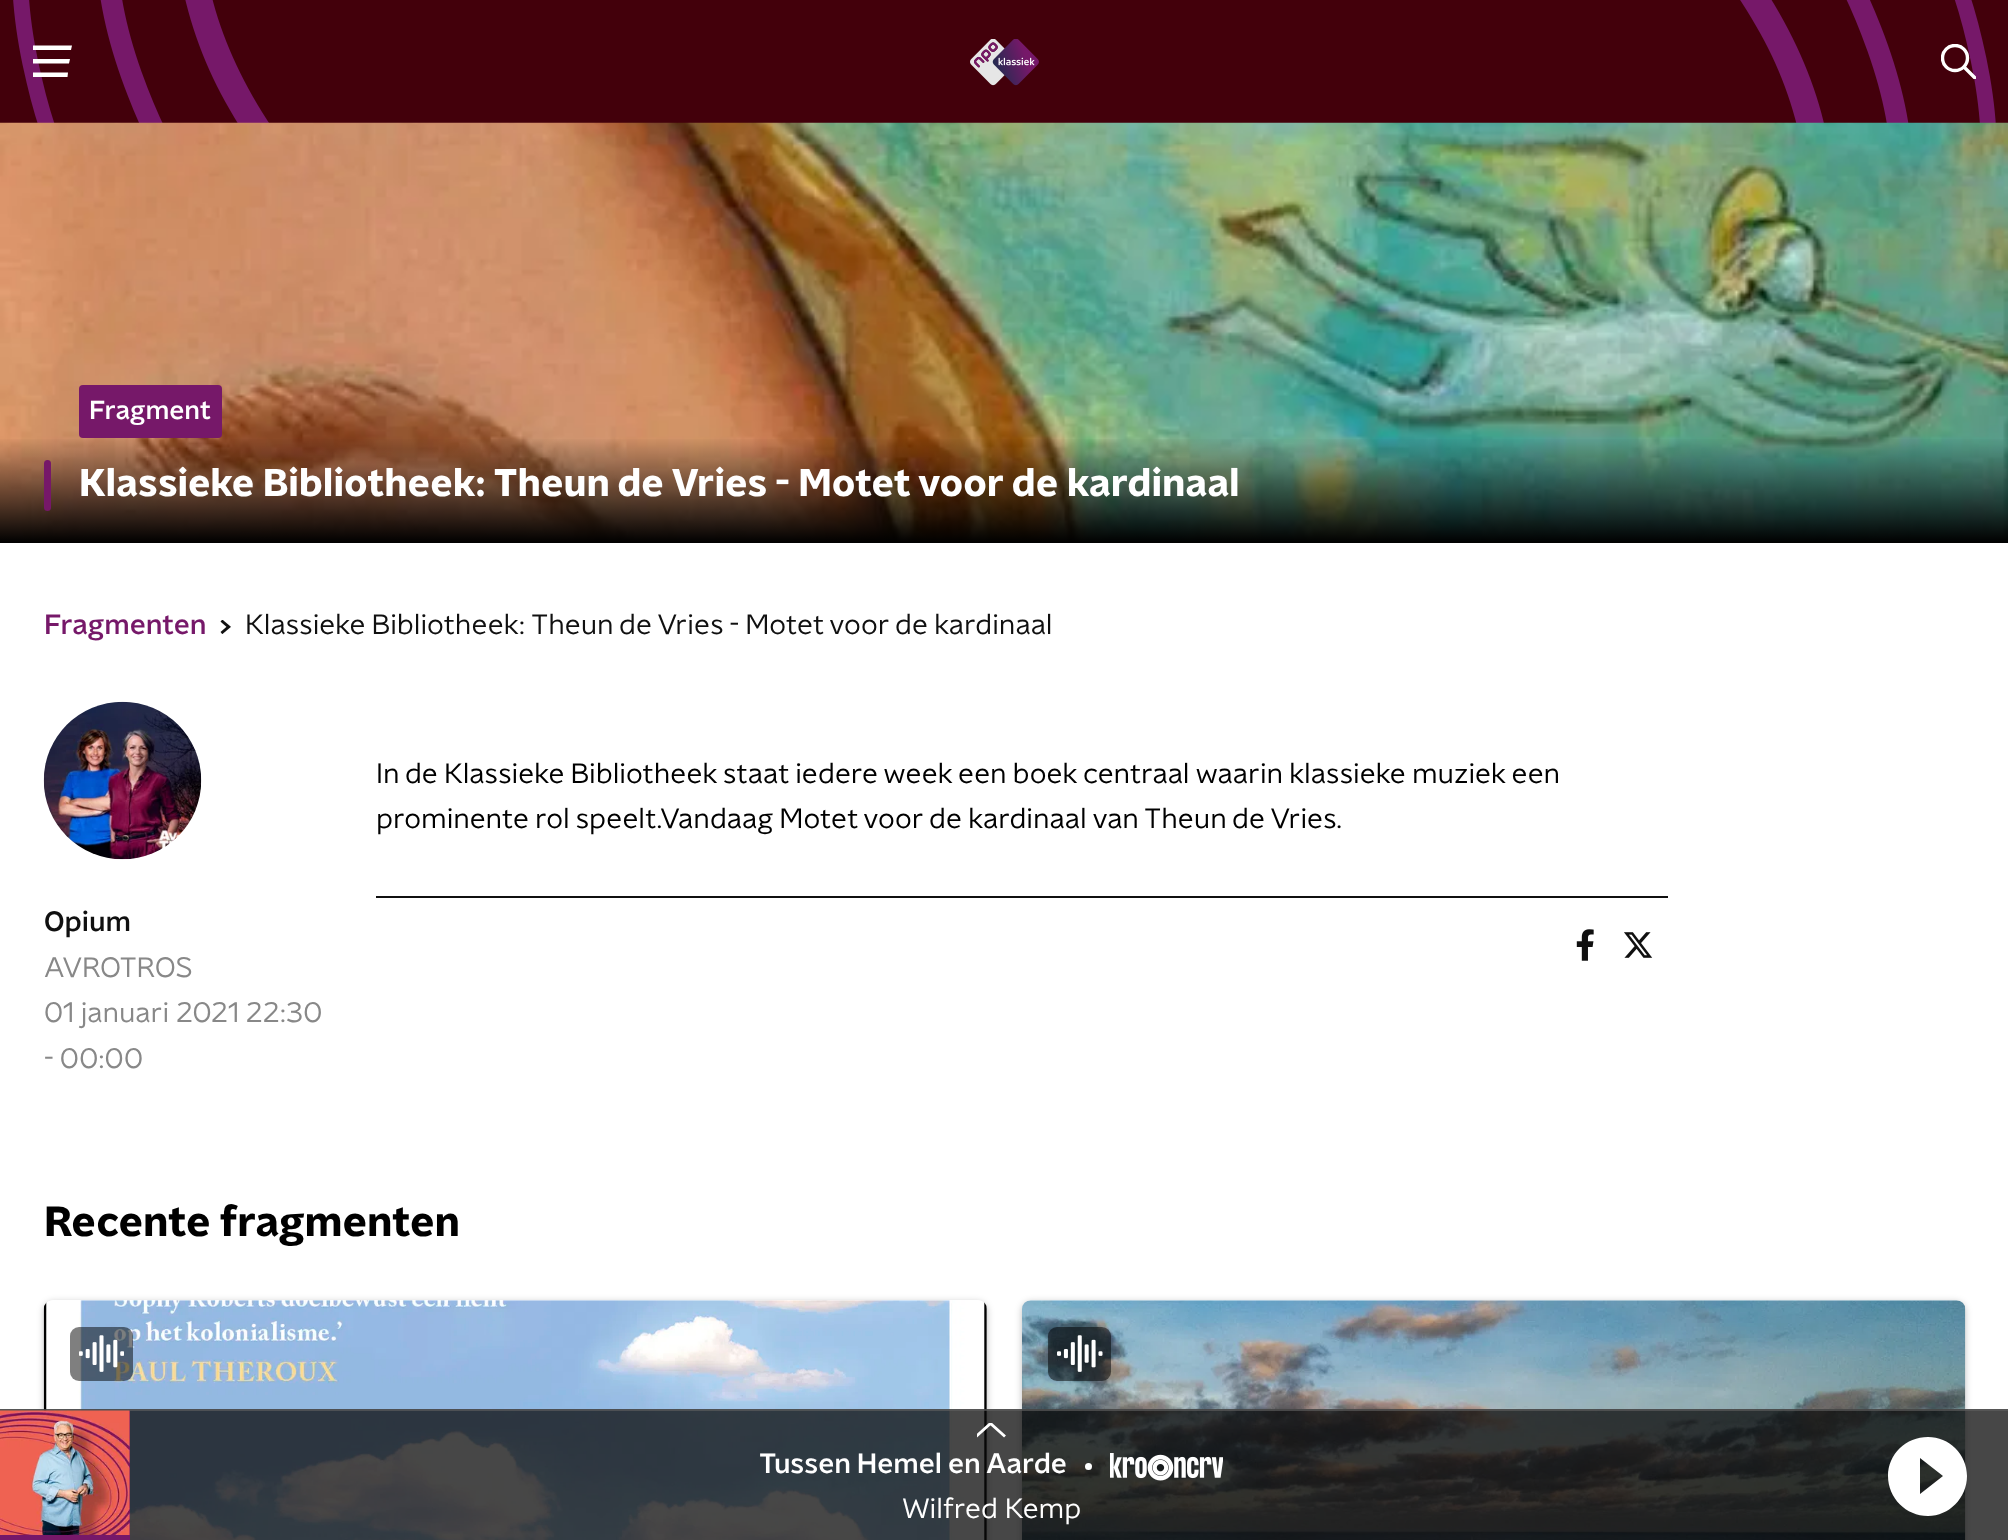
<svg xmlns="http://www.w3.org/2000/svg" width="2008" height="1540">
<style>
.a{font:500 26.25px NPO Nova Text;fill:#fff}
.b{font:bold 38.5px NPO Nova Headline;fill:#fff}
.c{font:500 28px NPO Nova Text;fill:#761869}
.d{font:28px NPO Nova Text;fill:#101010}
.e{font:28px NPO Nova Text;fill:#000}
.f{font:500 28px NPO Nova Text;fill:#101010}
.g{font:28px NPO Nova Text;fill:#888}
.h{font:bold 42px NPO Nova Headline;fill:#000}
.i{font:500 28px NPO Nova Text;fill:#fff}
.j{font:28px NPO Nova Text;fill:#fff}
</style>
<defs>
<clipPath id="clip1"><path d="M1941 44h35v35H1941z"/></clipPath>
<linearGradient id="g1" gradientUnits="userSpaceOnUse" x1="1005" y1="437" x2="1005" y2="543"><stop offset="0" stop-color="#000" stop-opacity="0"/><stop offset="1" stop-color="#000"/></linearGradient>
<clipPath id="clip2"><path d="M977 1423h31v16H977z"/></clipPath>
</defs>
<rect width="100%" height="100%" fill="#fff"/>
<path fill="#43000b" d="M0 0h2008v123H0z"/>
<image href="1.png" x="13" y="0" width="1983" height="123"/>
<path fill="#fff" d="M33 45.5h39l-1 4.5h-38zm0 13.5h37l-1 4.5h-36zm0 13.5h35l-.5 4.5h-34.5z"/>
<image href="2.png" x="970" y="39" width="69" height="47"/>
<g clip-path="url(#clip1)">
<circle fill="none" stroke="#fff" stroke-width="3.4" cx="1955" cy="58" r="12.5"/>
<path fill="none" stroke="#fff" stroke-width="3.4" stroke-linecap="square" d="M1964.5 67.5l10.5 10.5"/>
</g>
<image href="3.png" x="0" y="122" width="2008" height="420"/>
<path fill="url(#g1)" d="M0 439h2008v104H0z"/>
<rect fill="#761869" x="79" y="385" width="143" height="53" rx="4"/>
<rect fill="#761869" x="44" y="460" width="7" height="51" rx="3.5"/>
<image href="4.png" x="220" y="620" width="11" height="14"/>
<path fill="#101010" d="M376 896h1292v2H376z"/>
<image href="5.png" x="1576" y="929" width="18" height="32"/>
<image href="6.png" x="1624" y="932" width="29" height="26"/>
<image href="7.png" x="43" y="701" width="159" height="159"/>
<rect fill="#00000040" filter="blur(3.5px)" x="44" y="1302" width="943" height="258" rx="9"/>
<rect fill="#fff" x="44" y="1300" width="943" height="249" rx="9"/>
<image href="8.png" x="43" y="1300" width="944" height="240"/>
<rect fill="#00000080" x="70" y="1327" width="63" height="54" rx="9"/>
<image href="9.png" x="79" y="1335" width="45" height="37"/>
<rect fill="#00000040" filter="blur(3.5px)" x="1022" y="1302" width="943" height="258" rx="9"/>
<rect fill="#fff" x="1022" y="1300" width="943" height="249" rx="9"/>
<image href="10.png" x="1022" y="1300" width="944" height="240"/>
<rect fill="#00000080" x="1048" y="1327" width="63" height="54" rx="9"/>
<image href="11.png" x="1057" y="1335" width="46" height="37"/>
<path fill="#090909bf" d="M0 1409h2008v131H0z"/>
<path fill="#5f5f5fa6" d="M0 1409h2008v2H0z"/>
<path fill="#761869" d="M129 1411h1v124H129z"/>
<image href="12.png" x="0" y="1410" width="130" height="125"/>
<path fill="#761869" d="M0 1535h130v5H0z"/>
<g clip-path="url(#clip2)">
<path fill="none" stroke="#fff" stroke-width="2.9" d="M1005 1436.5l-14.5-13l-14.5 13"/>
</g>
<circle fill="#fff" cx="1088.5" cy="1466.5" r="3.5"/>
<image href="13.png" x="1110" y="1453" width="113" height="28"/>
<path fill="#fff" d="M1928 1437c-22 0-40 17-40 39c0 22 18 40 40 40c21 0 39-18 39-40c0-22-18-39-39-39zm-8 57v-36l23 18z"/>
<text class="a" x="89" y="419">Fragment</text>
<text class="b" x="79" y="496">Klassieke Bibliotheek: Theun de Vries - Motet voor de kardinaal</text>
<text class="c" x="44" y="634">Fragmenten</text>
<text class="d" x="245" y="634">Klassieke Bibliotheek: Theun de Vries - Motet voor de kardinaal</text>
<text class="e" x="376" y="783">In de Klassieke Bibliotheek staat iedere week een boek centraal waarin klassieke muziek een</text>
<text class="e" x="376" y="828">prominente rol speelt.Vandaag Motet voor de kardinaal van Theun de Vries.</text>
<text class="f" x="44" y="931">Opium</text>
<text class="g" x="44" y="977">AVROTROS</text>
<text class="g" x="44" y="1022">01 januari 2021 22:30</text>
<text class="g" x="44" y="1068">- 00:00</text>
<text class="h" x="44" y="1236">Recente fragmenten</text>
<text class="i" x="759" y="1473">Tussen Hemel en Aarde</text>
<text class="j" x="902" y="1518">Wilfred Kemp</text>
</svg>
